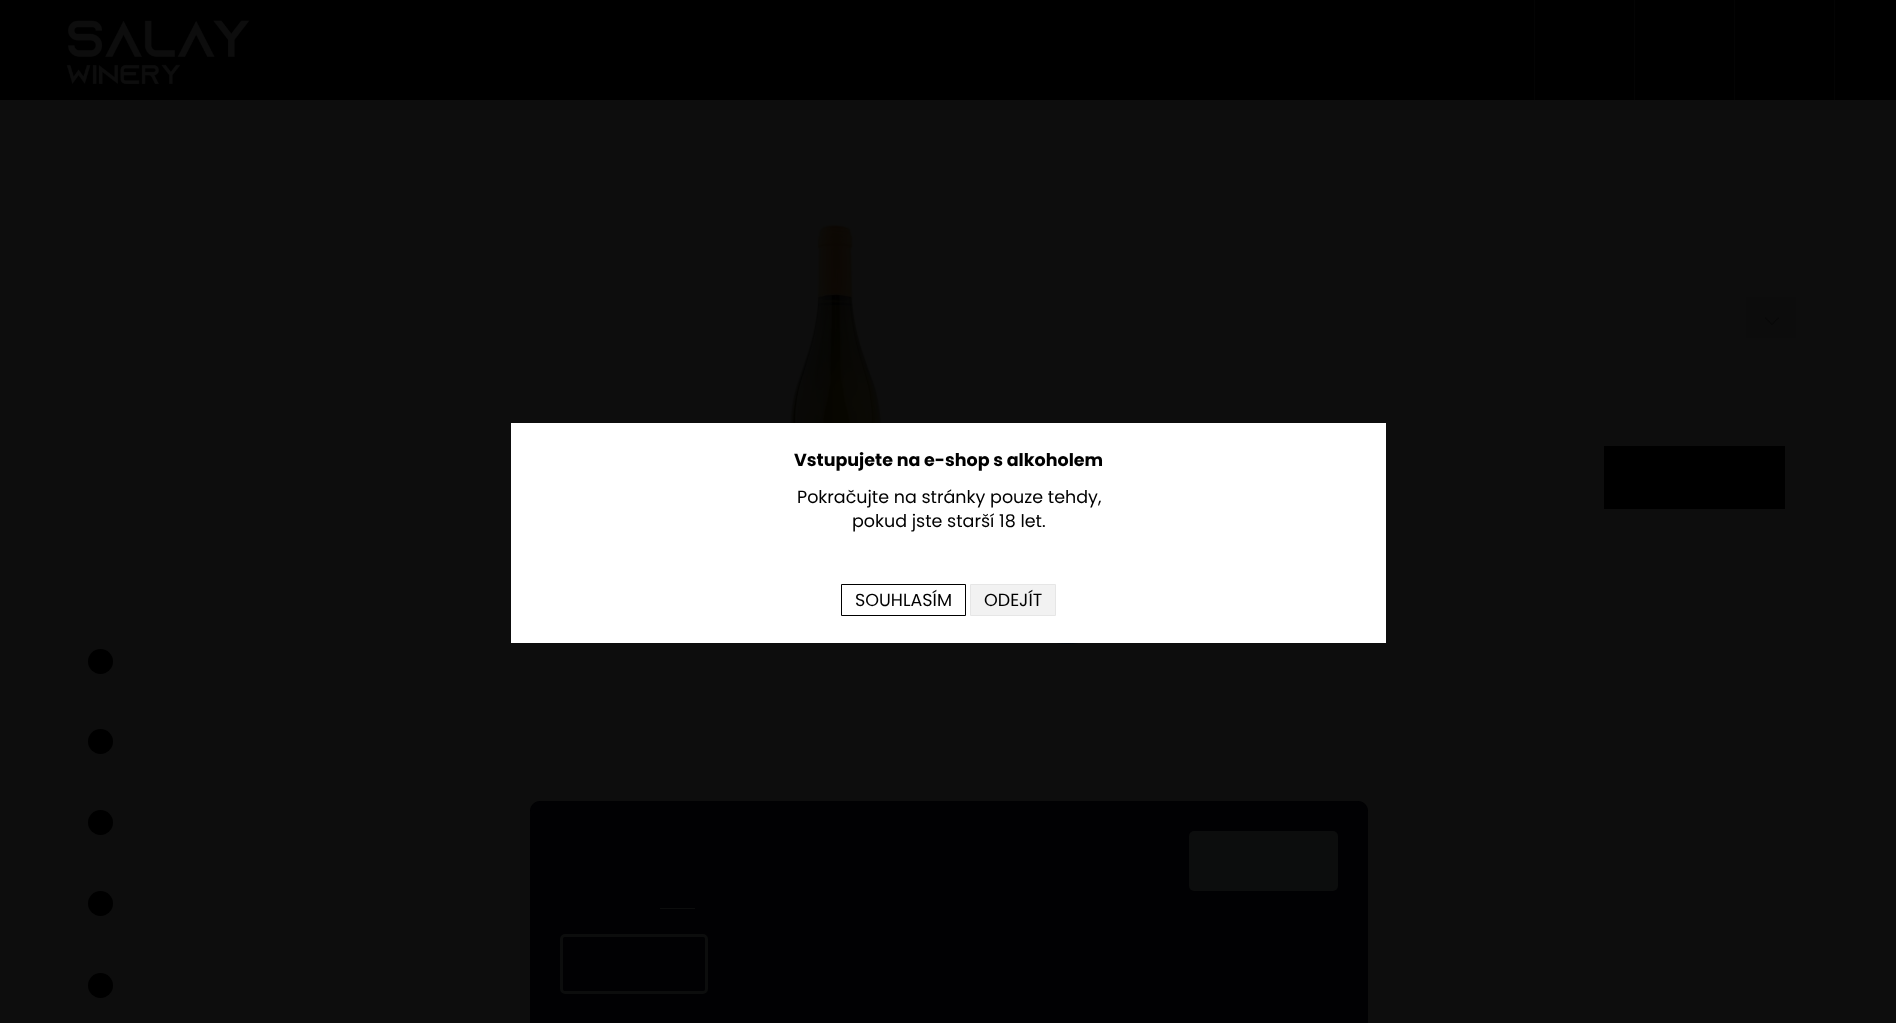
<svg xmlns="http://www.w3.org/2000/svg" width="1896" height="1023">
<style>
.a{font:bold 17.5px Poppins;fill:#000}
.b{font:17.5px Poppins;fill:#000}
</style>
<rect width="100%" height="100%" fill="#0d0d0d"/>
<path fill="#000" d="M0 0h1896v100H0z"/>
<image href="1.png" x="66" y="20" width="184" height="64"/>
<path fill="#040404" d="M1834 0h1v100H1834z"/>
<path fill="#040404" d="M1534 0h1v100H1534z"/>
<path fill="#040404" d="M1634 0h1v100H1634z"/>
<path fill="#040404" d="M1734 0h1v100H1734z"/>
<image href="2.png" x="789" y="223" width="95" height="200"/>
<circle fill="#01060c" cx="1067.5" cy="581.5" r="62.5"/>
<image href="3.png" x="1746" y="297" width="50" height="41"/>
<path fill="#000" d="M1604 446h181v63H1604z"/>
<circle fill="#000" cx="100.5" cy="661.5" r="12.5"/>
<circle fill="#000" cx="100.5" cy="741.5" r="12.5"/>
<circle fill="#000" cx="100.5" cy="822.5" r="12.5"/>
<circle fill="#000" cx="100.5" cy="903.5" r="12.5"/>
<circle fill="#000" cx="100.5" cy="985.5" r="12.5"/>
<path fill="#fff" d="M511 423h875v220H511z"/>
<path fill="none" stroke="#000" d="M841.5 584.5h124v31H841.5z"/>
<path fill="#f2f2f2" stroke="#e6e6e6" d="M970.5 584.5h85v31H970.5z"/>
<path fill="#010103" d="M540 801h818c5.5 0 10 4.5 10 10v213h-838v-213c0-5.5 4.5-10 10-10z"/>
<rect fill="#0c0d0d" x="1189" y="831" width="149" height="60" rx="5"/>
<path fill="#0c0d0d" d="M660 908h35v1H660z"/>
<rect fill="none" stroke="#0c0d0d" stroke-width="3" x="561.5" y="935.5" width="145" height="57" rx="3.5"/>
<text class="a" x="794" y="466">Vstupujete na e-shop s alkoholem</text>
<text class="b" x="797" y="503">Pokračujte na stránky pouze tehdy,</text>
<text class="b" x="852" y="527">pokud jste starší 18 let.</text>
<text class="b" x="855" y="606">SOUHLASÍM</text>
<text class="b" x="984" y="606">ODEJÍT</text>
</svg>
